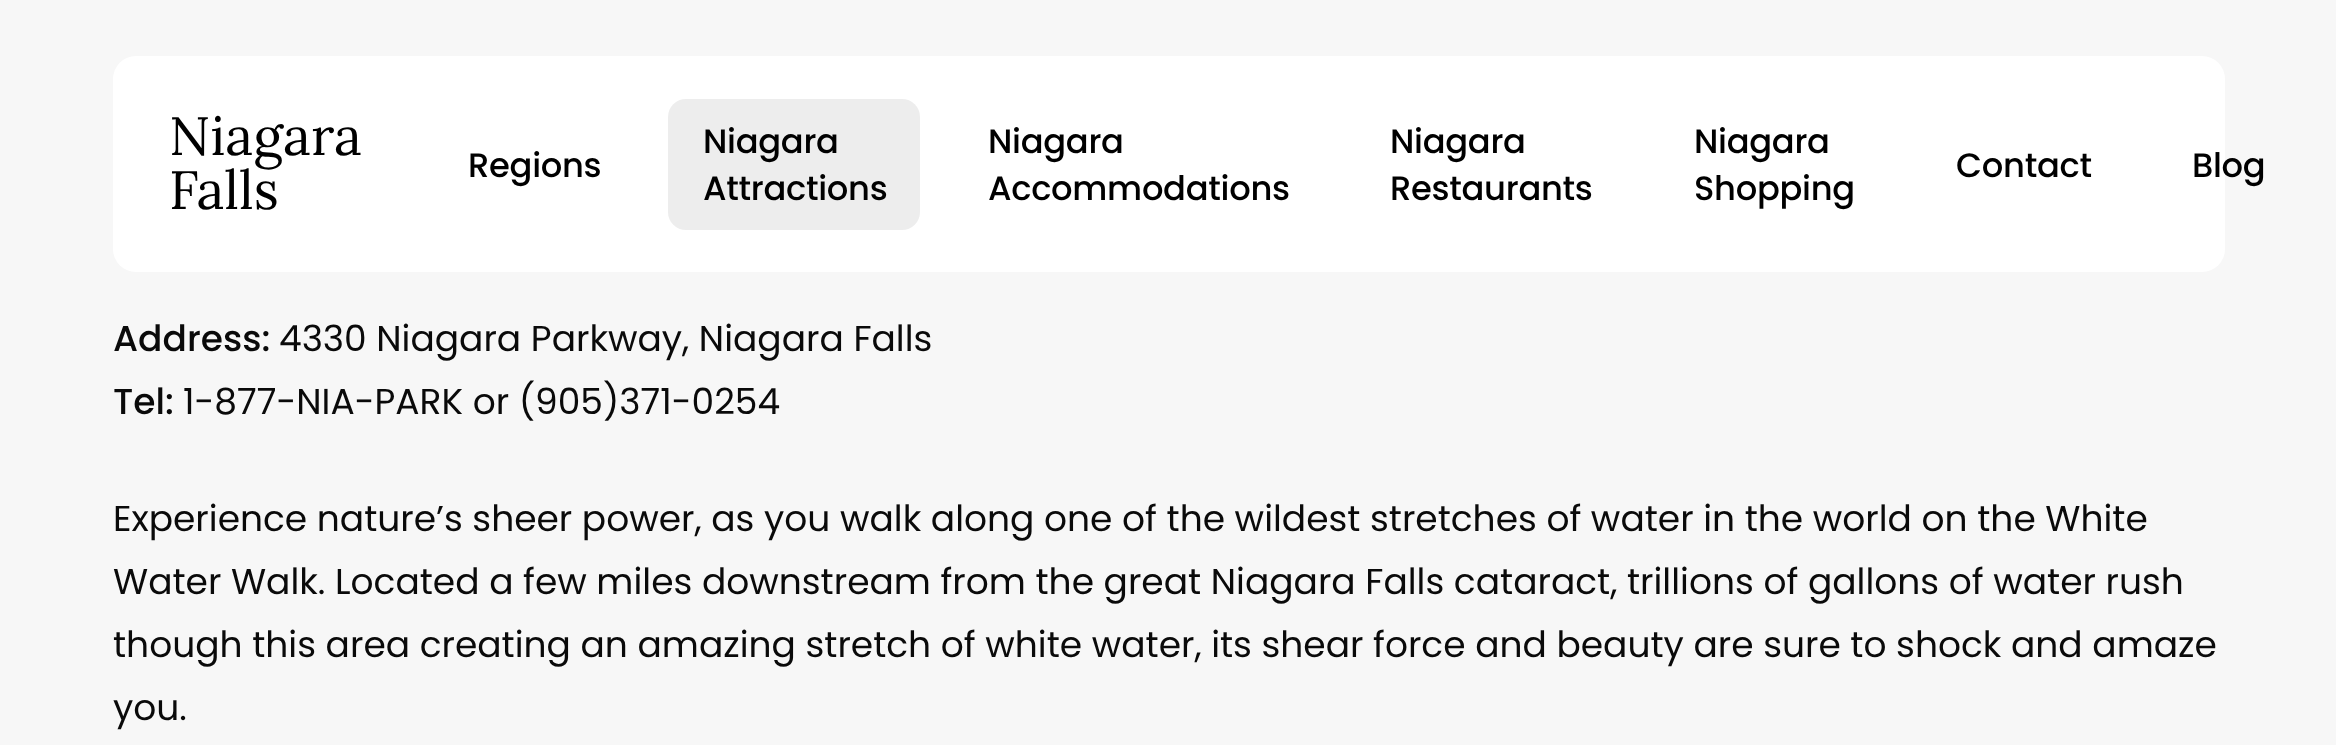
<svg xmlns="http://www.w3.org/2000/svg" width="2336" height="745">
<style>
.a{font:54px Lora;fill:#000}
.b{font:500 33.75px Poppins;letter-spacing:-0.3px;fill:#000}
.c{font:500 36px Poppins;fill:#0a0a0a}
.d{font:36px Poppins;fill:#0a0a0a}
</style>
<rect width="100%" height="100%" fill="#f7f7f7"/>
<rect fill="#fff" x="113" y="56" width="2112" height="216" rx="23"/>
<rect fill="#ededed" x="668" y="99" width="252" height="131" rx="18"/>
<text class="a" x="169" y="155">Niagara</text>
<text class="a" x="169" y="209">Falls</text>
<text class="b" x="468" y="177">Regions</text>
<text class="b" x="703" y="153">Niagara</text>
<text class="b" x="703" y="200">Attractions</text>
<text class="b" x="988" y="153">Niagara</text>
<text class="b" x="988" y="200">Accommodations</text>
<text class="b" x="1390" y="153">Niagara</text>
<text class="b" x="1390" y="200">Restaurants</text>
<text class="b" x="1694" y="153">Niagara</text>
<text class="b" x="1694" y="200">Shopping</text>
<text class="b" x="1956" y="177">Contact</text>
<text class="b" x="2192" y="177">Blog</text>
<text class="c" x="113" y="351">Address:</text>
<text class="d" x="279" y="351">4330 Niagara Parkway, Niagara Falls</text>
<text class="c" x="113" y="414">Tel:</text>
<text class="d" x="183" y="414">1-877-NIA-PARK or (905)371-0254</text>
<text class="d" x="113" y="531">Experience nature’s sheer power, as you walk along one of the wildest stretches of water in the world on the White</text>
<text class="d" x="113" y="594">Water Walk. Located a few miles downstream from the great Niagara Falls cataract, trillions of gallons of water rush</text>
<text class="d" x="113" y="657">though this area creating an amazing stretch of white water, its shear force and beauty are sure to shock and amaze</text>
<text class="d" x="113" y="720">you.</text>
</svg>
